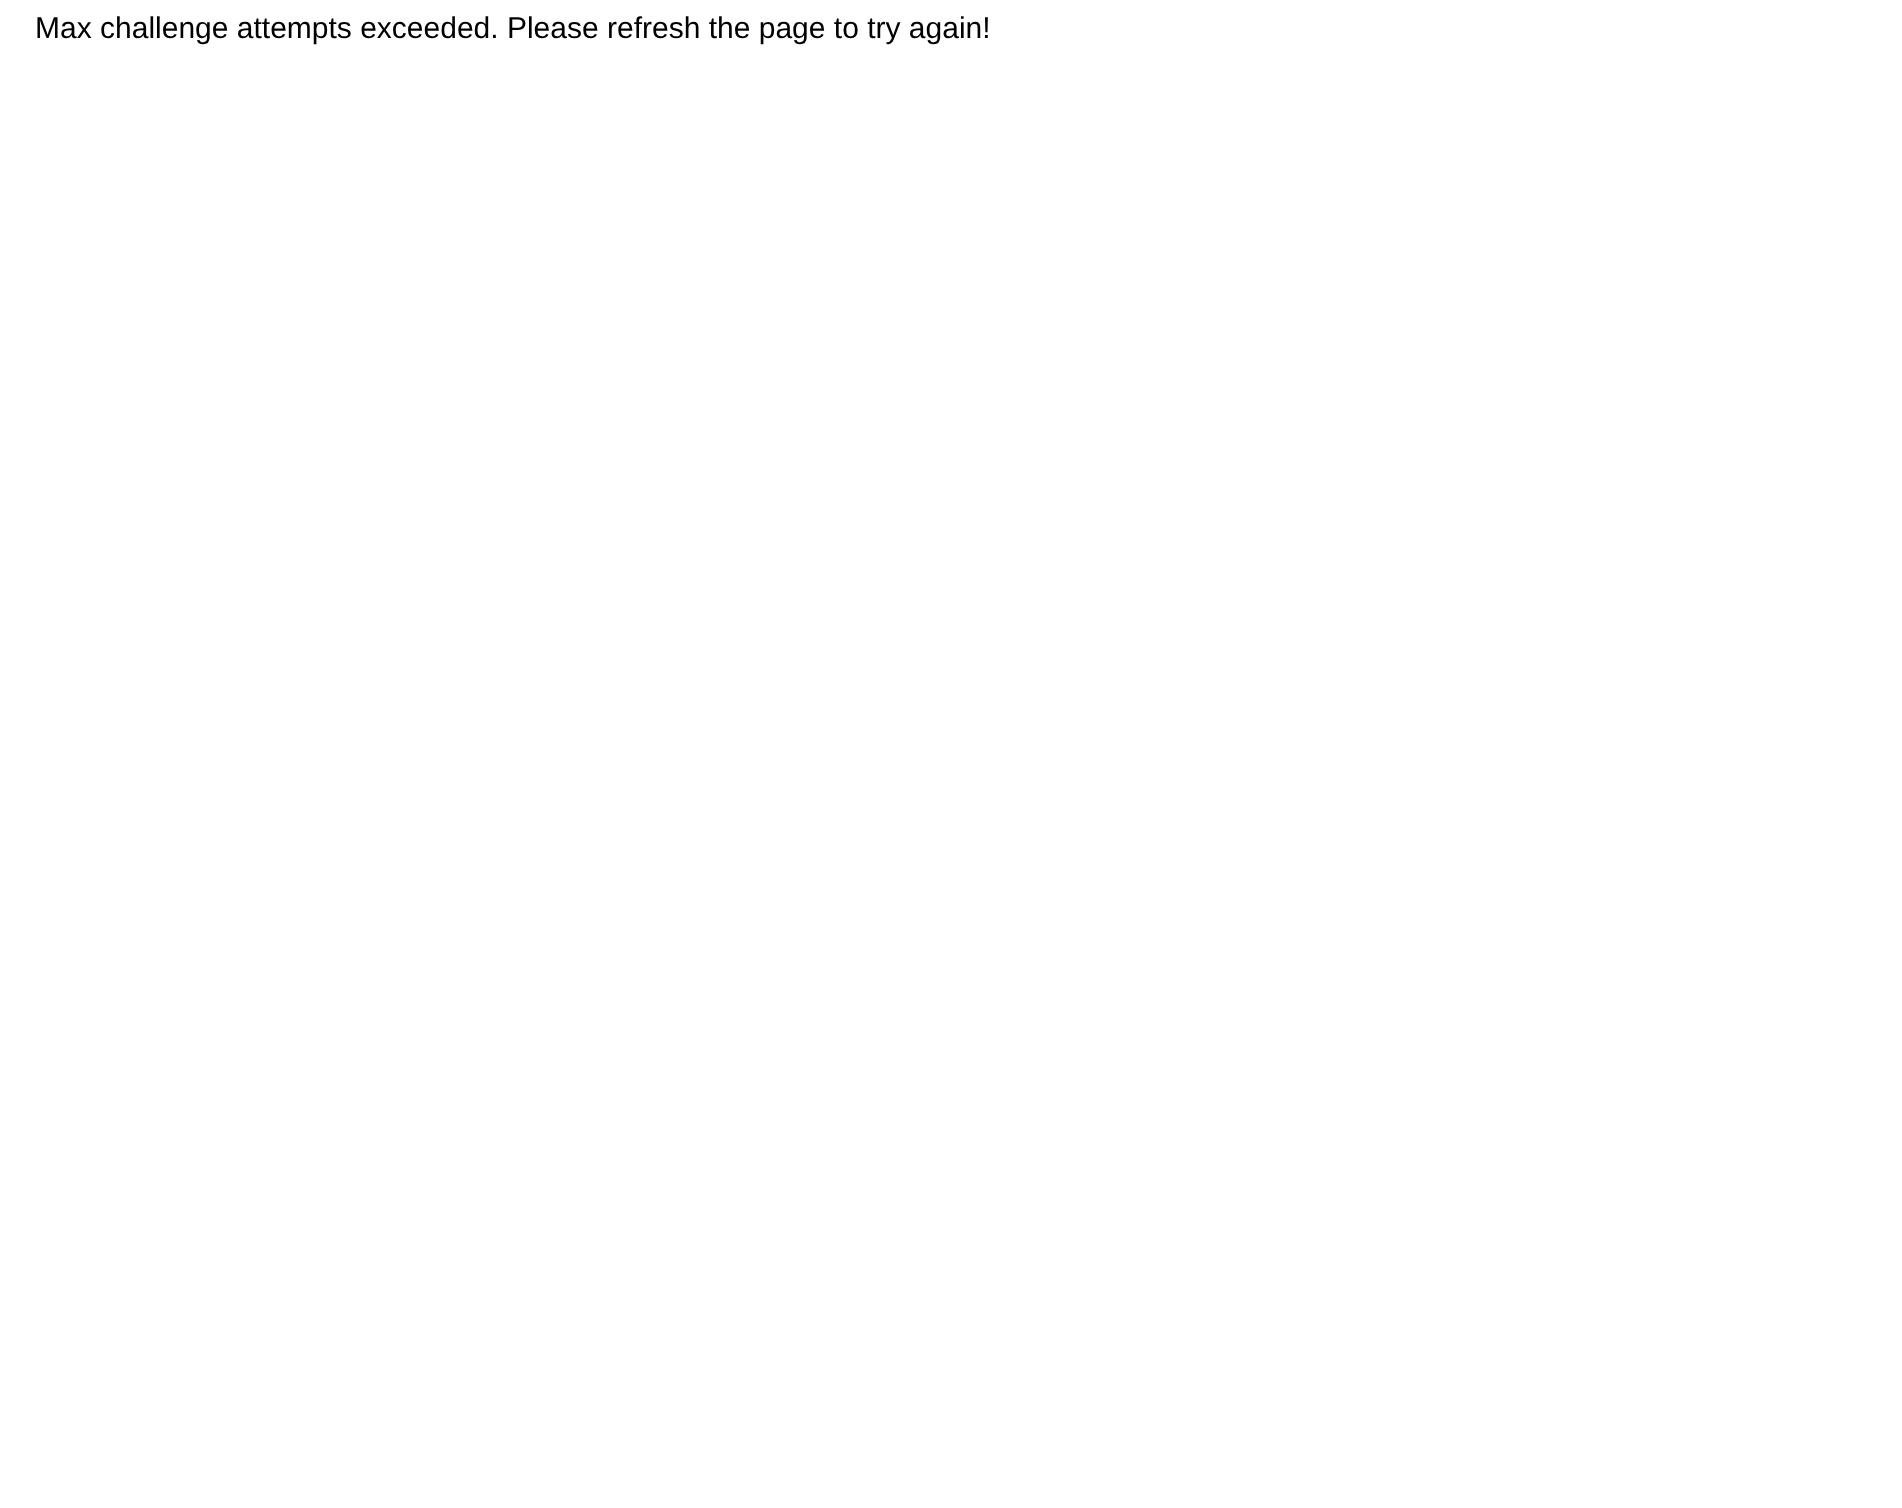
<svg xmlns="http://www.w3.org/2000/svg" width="1902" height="1508">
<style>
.a{font:30px Liberation Sans;fill:#000}
</style>
<rect width="100%" height="100%" fill="#fff"/>
<text class="a" x="35" y="38">Max challenge attempts exceeded. Please refresh the page to try again!</text>
</svg>
